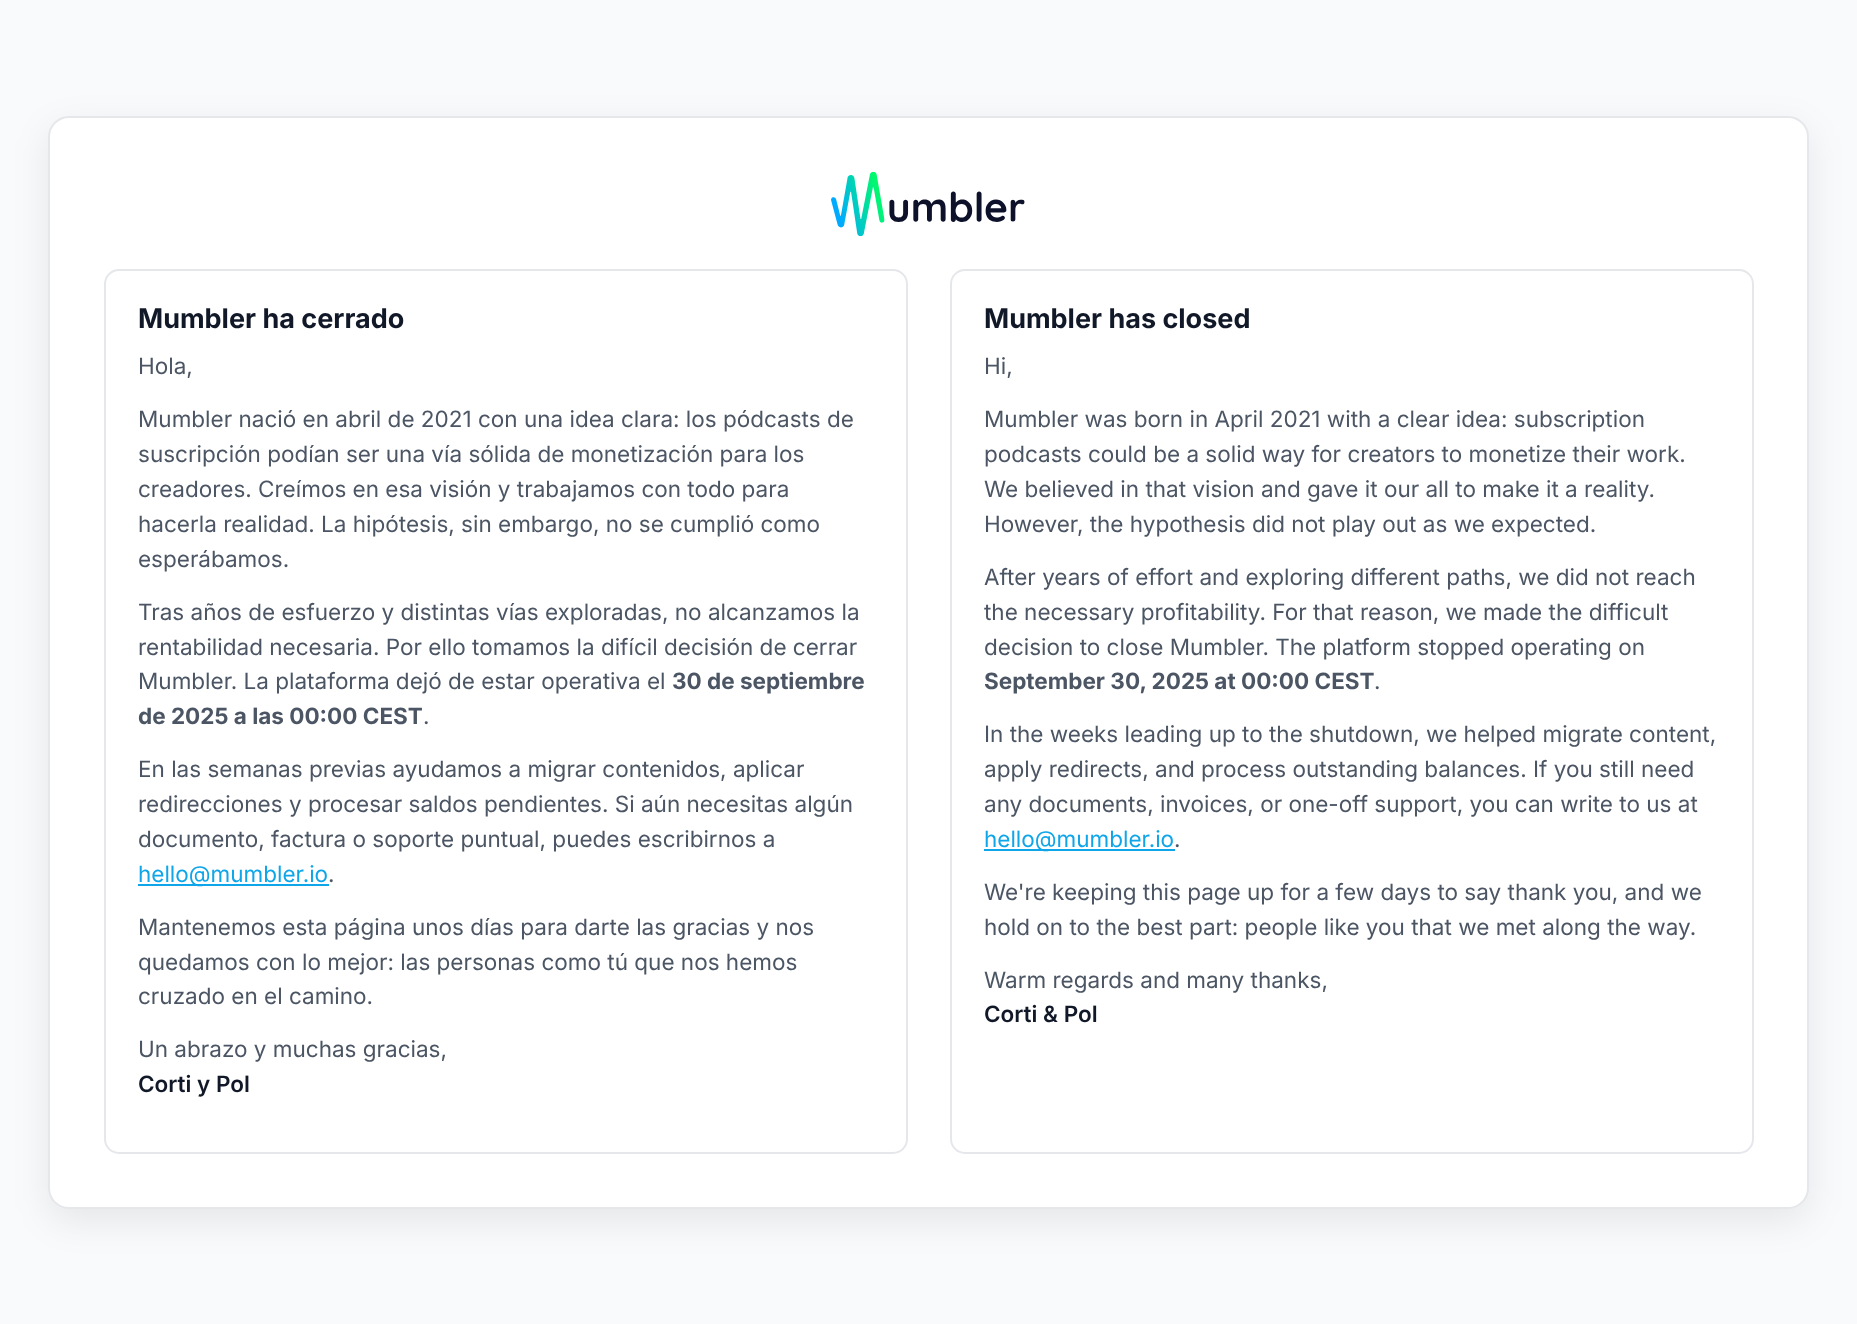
<svg xmlns="http://www.w3.org/2000/svg" width="1857" height="1324">
<style>
.a{font:bold 27px Inter;fill:#111827}
.b{font:22.5px Inter;fill:#4b5563}
.c{font:bold 22.5px Inter;fill:#4b5563}
.d{font:22.5px Inter;fill:#0ea5e9}
.e{font:600 22.5px Inter;fill:#111827}
</style>
<rect width="100%" height="100%" fill="#f9fafb"/>
<rect fill="#00000014" filter="blur(18px)" x="48" y="128" width="1761" height="1093" rx="21"/>
<rect fill="#fff" stroke="#e5e7eb" stroke-width="2" x="49" y="117" width="1759" height="1091" rx="20"/>
<image href="1.png" x="831" y="171" width="194" height="66"/>
<rect fill="none" stroke="#e5e7eb" stroke-width="2" x="105" y="270" width="802" height="883" rx="14"/>
<path fill="#0ea5e9" d="M138 884h191v2H138z"/>
<rect fill="none" stroke="#e5e7eb" stroke-width="2" x="951" y="270" width="802" height="883" rx="14"/>
<path fill="#0ea5e9" d="M984 849h191v2H984z"/>
<text class="a" x="138" y="328">Mumbler ha cerrado</text>
<text class="b" x="138" y="374">Hola,</text>
<text class="b" x="138" y="427">Mumbler nació en abril de 2021 con una idea clara: los pódcasts de</text>
<text class="b" x="138" y="462">suscripción podían ser una vía sólida de monetización para los</text>
<text class="b" x="138" y="497">creadores. Creímos en esa visión y trabajamos con todo para</text>
<text class="b" x="138" y="532">hacerla realidad. La hipótesis, sin embargo, no se cumplió como</text>
<text class="b" x="138" y="567">esperábamos.</text>
<text class="b" x="138" y="620">Tras años de esfuerzo y distintas vías exploradas, no alcanzamos la</text>
<text class="b" x="138" y="655">rentabilidad necesaria. Por ello tomamos la difícil decisión de cerrar</text>
<text class="b" x="138" y="689">Mumbler. La plataforma dejó de estar operativa el</text>
<text class="c" x="672" y="689">30 de septiembre</text>
<text class="c" x="138" y="724">de 2025 a las 00:00 CEST</text>
<text class="b" x="423" y="724">.</text>
<text class="b" x="138" y="777">En las semanas previas ayudamos a migrar contenidos, aplicar</text>
<text class="b" x="138" y="812">redirecciones y procesar saldos pendientes. Si aún necesitas algún</text>
<text class="b" x="138" y="847">documento, factura o soporte puntual, puedes escribirnos a</text>
<text class="d" x="138" y="882">hello@mumbler.io</text>
<text class="b" x="328" y="882">.</text>
<text class="b" x="138" y="935">Mantenemos esta página unos días para darte las gracias y nos</text>
<text class="b" x="138" y="970">quedamos con lo mejor: las personas como tú que nos hemos</text>
<text class="b" x="138" y="1004">cruzado en el camino.</text>
<text class="b" x="138" y="1057">Un abrazo y muchas gracias,</text>
<text class="e" x="138" y="1092">Corti y Pol</text>
<text class="a" x="984" y="328">Mumbler has closed</text>
<text class="b" x="984" y="374">Hi,</text>
<text class="b" x="984" y="427">Mumbler was born in April 2021 with a clear idea: subscription</text>
<text class="b" x="984" y="462">podcasts could be a solid way for creators to monetize their work.</text>
<text class="b" x="984" y="497">We believed in that vision and gave it our all to make it a reality.</text>
<text class="b" x="984" y="532">However, the hypothesis did not play out as we expected.</text>
<text class="b" x="984" y="585">After years of effort and exploring different paths, we did not reach</text>
<text class="b" x="984" y="620">the necessary profitability. For that reason, we made the difficult</text>
<text class="b" x="984" y="655">decision to close Mumbler. The platform stopped operating on</text>
<text class="c" x="984" y="689">September 30, 2025 at 00:00 CEST</text>
<text class="b" x="1374" y="689">.</text>
<text class="b" x="984" y="742">In the weeks leading up to the shutdown, we helped migrate content,</text>
<text class="b" x="984" y="777">apply redirects, and process outstanding balances. If you still need</text>
<text class="b" x="984" y="812">any documents, invoices, or one-off support, you can write to us at</text>
<text class="d" x="984" y="847">hello@mumbler.io</text>
<text class="b" x="1174" y="847">.</text>
<text class="b" x="984" y="900">We're keeping this page up for a few days to say thank you, and we</text>
<text class="b" x="984" y="935">hold on to the best part: people like you that we met along the way.</text>
<text class="b" x="984" y="988">Warm regards and many thanks,</text>
<text class="e" x="984" y="1022">Corti &amp; Pol</text>
</svg>
